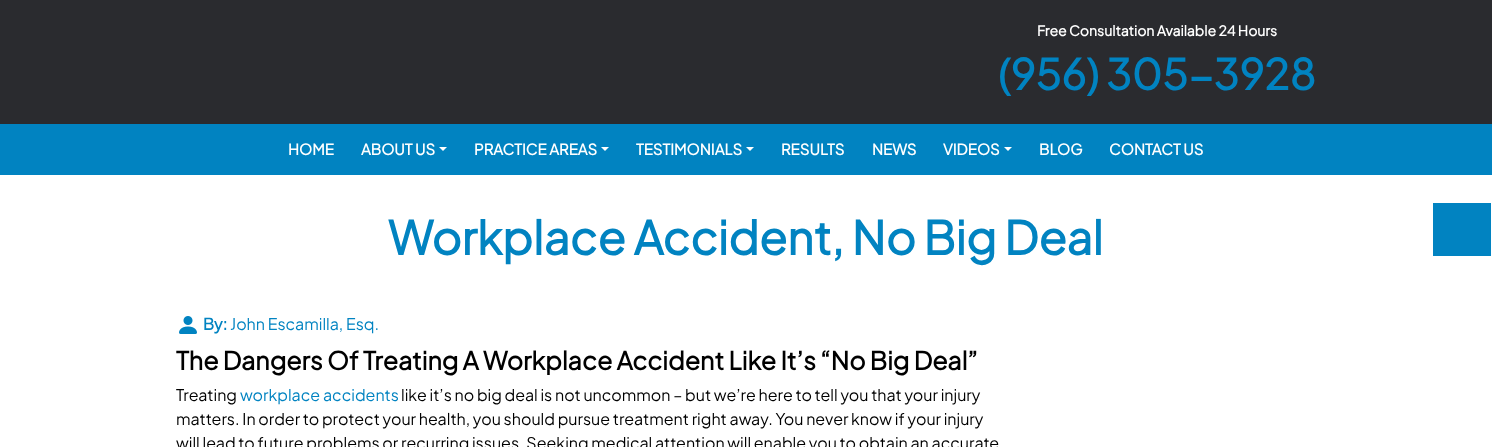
<svg xmlns="http://www.w3.org/2000/svg" width="1492" height="447">
<style>
.a{font:bold 14px Plus Jakarta Sans;fill:#fff}
.b{font:bold 42px Plus Jakarta Sans;fill:#0183c1}
.c{font:bold 15px Plus Jakarta Sans;fill:#fff}
.d{font:bold 46px Plus Jakarta Sans;fill:#0183c1}
.e{font:bold 16px Plus Jakarta Sans;fill:#0183c1}
.f{font:16px Plus Jakarta Sans;fill:#0183c1}
.g{font:bold 25px Plus Jakarta Sans;fill:#000}
.h{font:16px Plus Jakarta Sans;fill:#000}
</style>
<rect width="100%" height="100%" fill="#fff"/>
<path fill="#2a2b2f" d="M0 0h1492v124H0z"/>
<path fill="#0183c1" d="M0 124h1492v51H0z"/>
<path fill="#fff" d="M439 147h8l-4 4z"/>
<path fill="#fff" d="M601 147h8l-4 4z"/>
<path fill="#fff" d="M746 147h8l-4 4z"/>
<path fill="#fff" d="M1004 147h8l-4 4z"/>
<path fill="#0183c1" d="M1433 203h58v53H1433z"/>
<image href="1.png" x="179" y="316" width="18" height="18"/>
<text class="a" x="1037" y="36">Free Consultation Available 24 Hours</text>
<text class="b" x="998" y="90">(956) 305-3928</text>
<text class="c" x="288" y="155">HOME</text>
<text class="c" x="361" y="155">ABOUT US</text>
<text class="c" x="474" y="155">PRACTICE AREAS</text>
<text class="c" x="636" y="155">TESTIMONIALS</text>
<text class="c" x="781" y="155">RESULTS</text>
<text class="c" x="872" y="155">NEWS</text>
<text class="c" x="943" y="155">VIDEOS</text>
<text class="c" x="1039" y="155">BLOG</text>
<text class="c" x="1109" y="155">CONTACT US</text>
<text class="d" x="388" y="255">Workplace Accident, No Big Deal</text>
<text class="e" x="203" y="330">By:</text>
<text class="f" x="230" y="330">John Escamilla, Esq.</text>
<text class="g" x="176" y="370">The Dangers Of Treating A Workplace Accident Like It’s “No Big Deal”</text>
<text class="h" x="176" y="401">Treating</text>
<text class="f" x="240" y="401">workplace accidents</text>
<text class="h" x="401" y="401">like it’s no big deal is not uncommon – but we’re here to tell you that your injury</text>
<text class="h" x="176" y="425">matters. In order to protect your health, you should pursue treatment right away. You never know if your injury</text>
<text class="h" x="176" y="449">will lead to future problems or recurring issues. Seeking medical attention will enable you to obtain an accurate</text>
</svg>
